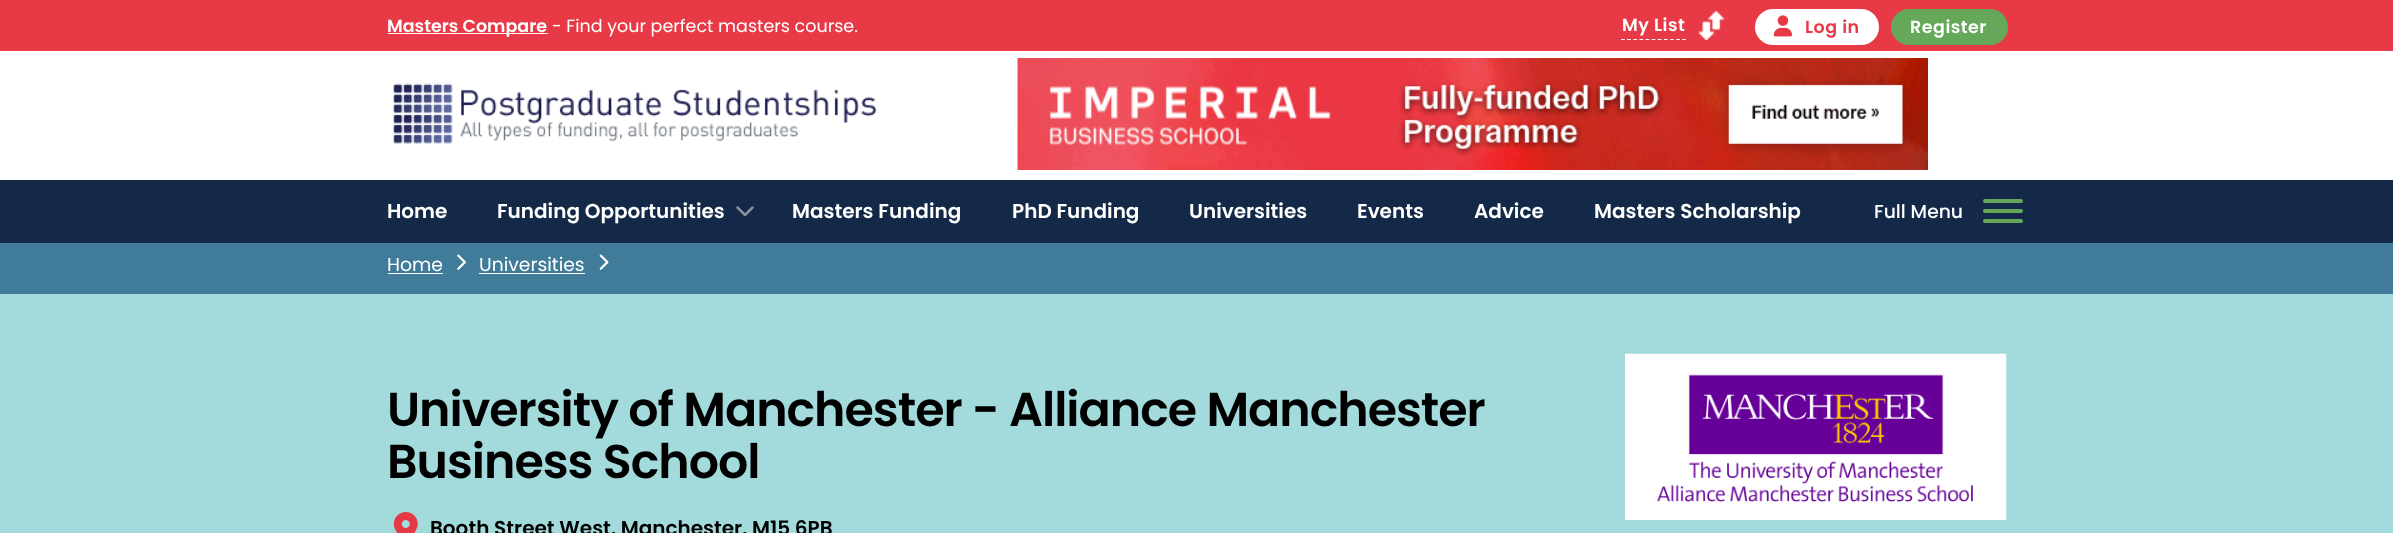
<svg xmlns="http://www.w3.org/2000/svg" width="2393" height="533">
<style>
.a{font:600 17.5px Poppins;fill:#fff}
.b{font:17.5px Poppins;fill:#fff}
.c{font:600 17.5px Poppins;letter-spacing:0.5px;fill:#fff}
.d{font:600 17.5px Poppins;letter-spacing:0.5px;fill:#e73a46}
.e{font:600 20px Poppins;fill:#fff}
.f{font:500 18.75px Poppins;fill:#fff}
.g{font:18.75px Poppins;fill:#fff}
.h{font:600 47.5px Poppins;letter-spacing:-1px;fill:#000}
.i{font:600 20px Poppins;fill:#000}
</style>
<rect width="100%" height="100%" fill="#407c9a"/>
<path fill="#e73a46" d="M0 0h2393v51H0z"/>
<path fill="#fff" d="M388 33h160v1H388z"/>
<path fill="none" stroke="#fff" stroke-width="1.2" stroke-dasharray="3.75 2.38" d="M1621 39.5h65"/>
<image href="1.png" x="1698" y="11" width="26" height="29"/>
<rect fill="#fff" x="1755" y="9" width="124" height="36" rx="18"/>
<image href="2.png" x="1773" y="15" width="20" height="22"/>
<rect fill="#66a859" x="1891" y="9" width="117" height="36" rx="18"/>
<path fill="#fff" d="M0 51h2393v129H0z"/>
<image href="3.png" x="393" y="83" width="484" height="61"/>
<image href="4.png" x="1017" y="58" width="911" height="112"/>
<path fill="#142947" d="M0 180h2393v63H0z"/>
<image href="5.png" x="736" y="206" width="18" height="11"/>
<rect fill="#66a859" x="1983" y="209" width="40" height="4" rx="2"/>
<rect fill="#66a859" x="1983" y="199" width="40" height="4" rx="2"/>
<rect fill="#66a859" x="1983" y="219" width="40" height="4" rx="2"/>
<path fill="#fff" d="M388 273h55v1H388z"/>
<image href="6.png" x="457" y="254" width="9" height="16"/>
<path fill="#fff" d="M479 273h106v1H479z"/>
<image href="7.png" x="599" y="254" width="10" height="16"/>
<path fill="#a3dadc" d="M0 294h2393v239H0z"/>
<image href="8.png" x="393" y="512" width="25" height="21"/>
<image href="9.png" x="1625" y="353" width="382" height="167"/>
<text class="a" x="387" y="32">Masters Compare</text>
<text class="b" x="552" y="32">- Find your perfect masters course.</text>
<text class="c" x="1622" y="31">My List</text>
<text class="d" x="1805" y="33">Log in</text>
<text class="c" x="1910" y="33">Register</text>
<text class="e" x="387" y="218">Home</text>
<text class="e" x="497" y="218">Funding Opportunities</text>
<text class="e" x="792" y="218">Masters Funding</text>
<text class="e" x="1012" y="218">PhD Funding</text>
<text class="e" x="1189" y="218">Universities</text>
<text class="e" x="1357" y="218">Events</text>
<text class="e" x="1474" y="218">Advice</text>
<text class="e" x="1594" y="218">Masters Scholarship</text>
<text class="f" x="1874" y="218">Full Menu</text>
<text class="g" x="387" y="271">Home</text>
<text class="g" x="479" y="271">Universities</text>
<text class="h" x="387" y="426">University of Manchester - Alliance Manchester</text>
<text class="h" x="387" y="478">Business School</text>
<text class="i" x="430" y="535">Booth Street West, Manchester, M15 6PB</text>
</svg>
